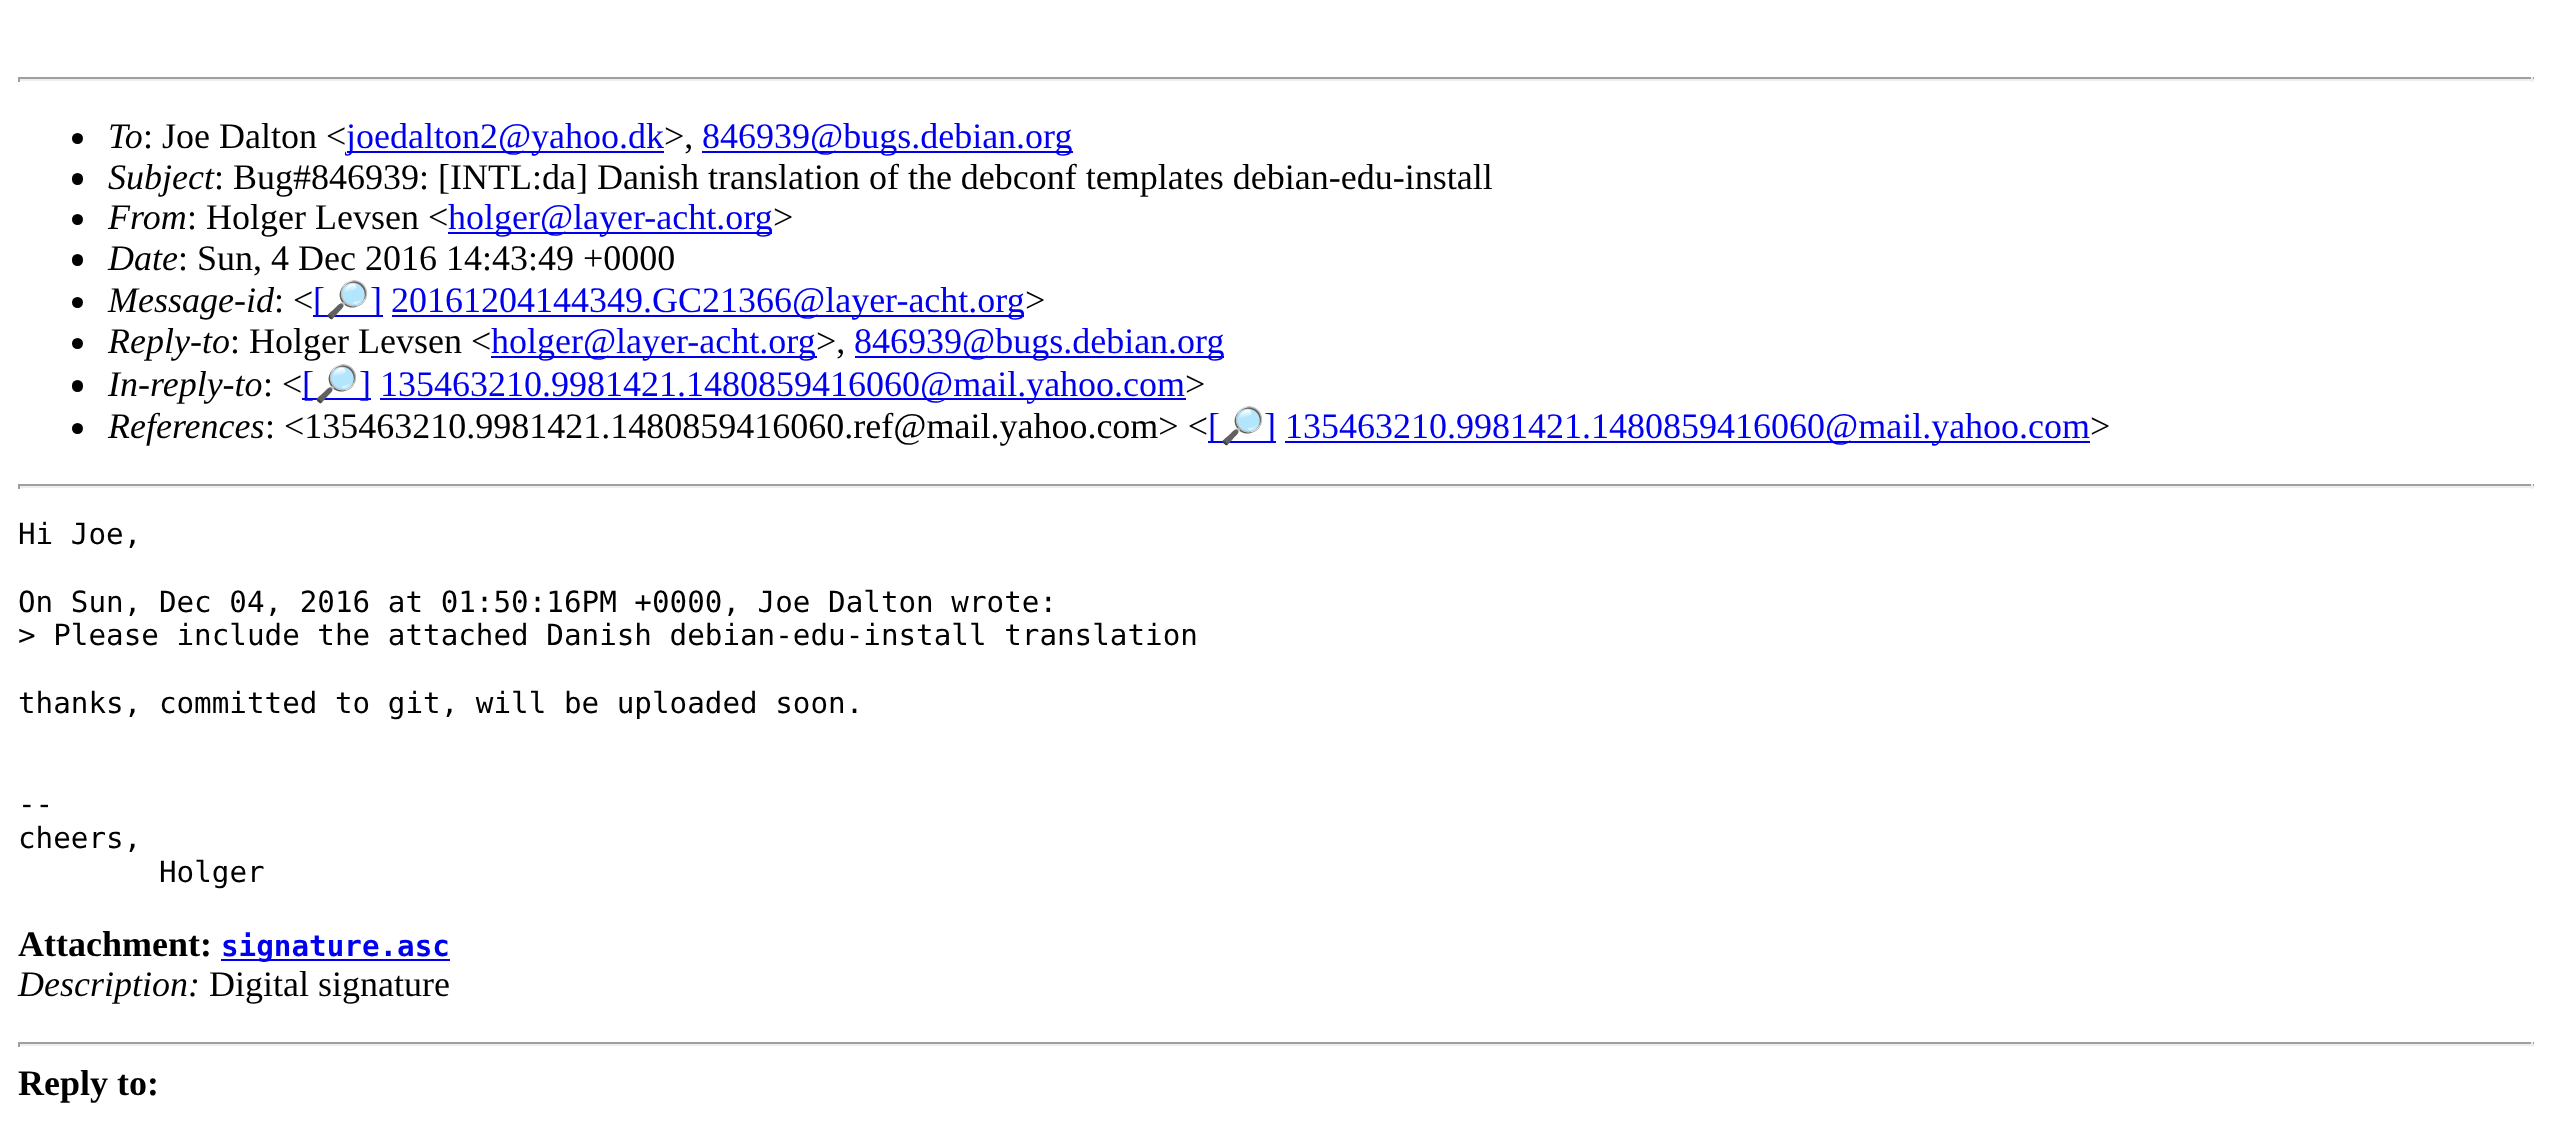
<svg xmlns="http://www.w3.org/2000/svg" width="2551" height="1135">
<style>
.a{font:italic 36px Liberation Serif;fill:#000}
.b{font:36px Liberation Serif;fill:#000}
.c{font:36px Liberation Serif;fill:#00e}
.d{font:36px Noto Color Emoji;fill:#00e}
.e{font:29.25px DejaVu Sans Mono;fill:#000}
.f{font:bold 36px Liberation Serif;fill:#000}
.g{font:bold 29.25px DejaVu Sans Mono;fill:#00e}
</style>
<rect width="100%" height="100%" fill="#fff"/>
<path fill="#9f9f9f" d="M18 77h2516v2H18z"/>
<path fill="#eee" d="M2531 77h2v5H2531z"/>
<path fill="#eee" d="M18 79h2516v2H18z"/>
<path fill="#9f9f9f" d="M18 77h2v5H18z"/>
<circle fill="#000" cx="77.5" cy="138.5" r="5.5"/>
<path fill="#00e" d="M347 151h317v2H347z"/>
<path fill="#00e" d="M702 151h371v2H702z"/>
<rect fill="#000" x="72" y="173" width="11" height="12" rx="5.5"/>
<circle fill="#000" cx="77.5" cy="219.5" r="5.5"/>
<path fill="#00e" d="M448 232h324v2H448z"/>
<rect fill="#000" x="72" y="254" width="11" height="12" rx="5.5"/>
<circle fill="#000" cx="77.5" cy="302.5" r="5.5"/>
<path fill="#00e" d="M313 315h70v2H313z"/>
<path fill="#00e" d="M392 315h632v2H392z"/>
<circle fill="#000" cx="77.5" cy="343.5" r="5.5"/>
<path fill="#00e" d="M491 356h326v2H491z"/>
<path fill="#00e" d="M855 356h369v2H855z"/>
<rect fill="#000" x="72" y="380" width="11" height="12" rx="5.5"/>
<path fill="#00e" d="M302 398h69v2H302z"/>
<path fill="#00e" d="M380 398h806v2H380z"/>
<circle fill="#000" cx="77.5" cy="428.5" r="5.5"/>
<path fill="#00e" d="M1208 441h68v2H1208z"/>
<path fill="#00e" d="M1285 441h805v2H1285z"/>
<path fill="#9f9f9f" d="M18 484h2516v2H18z"/>
<path fill="#eee" d="M2531 484h2v5H2531z"/>
<path fill="#eee" d="M18 486h2516v2H18z"/>
<path fill="#9f9f9f" d="M18 484h2v5H18z"/>
<path fill="#00e" d="M221 959h229v2H221z"/>
<path fill="#9f9f9f" d="M18 1042h2516v2H18z"/>
<path fill="#eee" d="M2531 1042h2v5H2531z"/>
<path fill="#eee" d="M18 1044h2516v2H18z"/>
<path fill="#9f9f9f" d="M18 1042h2v5H18z"/>
<text class="a" x="108" y="148">To</text>
<text class="b" x="143" y="148">: Joe Dalton &lt;</text>
<text class="c" x="346" y="148">joedalton2@yahoo.dk</text>
<text class="b" x="664" y="148">&gt;,</text>
<text class="c" x="702" y="148">846939@bugs.debian.org</text>
<text class="a" x="108" y="189">Subject</text>
<text class="b" x="214" y="189">: Bug#846939: [INTL:da] Danish translation of the debconf templates debian-edu-install</text>
<text class="a" x="108" y="229">From</text>
<text class="b" x="187" y="229">: Holger Levsen &lt;</text>
<text class="c" x="448" y="229">holger@layer-acht.org</text>
<text class="b" x="773" y="229">&gt;</text>
<text class="a" x="108" y="270">Date</text>
<text class="b" x="178" y="270">: Sun, 4 Dec 2016 14:43:49 +0000</text>
<text class="a" x="108" y="312">Message-id</text>
<text class="b" x="274" y="312">: &lt;</text>
<text class="c" x="313" y="312">[</text>
<text class="d" x="325" y="312">🔎</text>
<text class="c" x="370" y="312">]</text>
<text class="c" x="391" y="312">20161204144349.GC21366@layer-acht.org</text>
<text class="b" x="1025" y="312">&gt;</text>
<text class="a" x="108" y="353">Reply-to</text>
<text class="b" x="230" y="353">: Holger Levsen &lt;</text>
<text class="c" x="491" y="353">holger@layer-acht.org</text>
<text class="b" x="816" y="353">&gt;,</text>
<text class="c" x="854" y="353">846939@bugs.debian.org</text>
<text class="a" x="108" y="396">In-reply-to</text>
<text class="b" x="263" y="396">: &lt;</text>
<text class="c" x="302" y="396">[</text>
<text class="d" x="314" y="396">🔎</text>
<text class="c" x="359" y="396">]</text>
<text class="c" x="380" y="396">135463210.9981421.1480859416060@mail.yahoo.com</text>
<text class="b" x="1185" y="396">&gt;</text>
<text class="a" x="108" y="438">References</text>
<text class="b" x="265" y="438">: &lt;135463210.9981421.1480859416060.ref@mail.yahoo.com&gt; &lt;</text>
<text class="c" x="1208" y="438">[</text>
<text class="d" x="1220" y="438">🔎</text>
<text class="c" x="1264" y="438">]</text>
<text class="c" x="1285" y="438">135463210.9981421.1480859416060@mail.yahoo.com</text>
<text class="b" x="2090" y="438">&gt;</text>
<text class="e" x="18" y="544">Hi Joe,</text>
<text class="e" x="18" y="612">On Sun, Dec 04, 2016 at 01:50:16PM +0000, Joe Dalton wrote:</text>
<text class="e" x="18" y="645">&gt; Please include the attached Danish debian-edu-install translation</text>
<text class="e" x="18" y="713">thanks, committed to git, will be uploaded soon.</text>
<text class="e" x="18" y="814">--</text>
<text class="e" x="18" y="848">cheers,</text>
<text class="e" x="159" y="882">Holger</text>
<text class="f" x="18" y="956">Attachment:</text>
<text class="g" x="221" y="956">signature.asc</text>
<text class="a" x="18" y="996">Description:</text>
<text class="b" x="209" y="996">Digital signature</text>
<text class="f" x="18" y="1095">Reply to:</text>
</svg>
